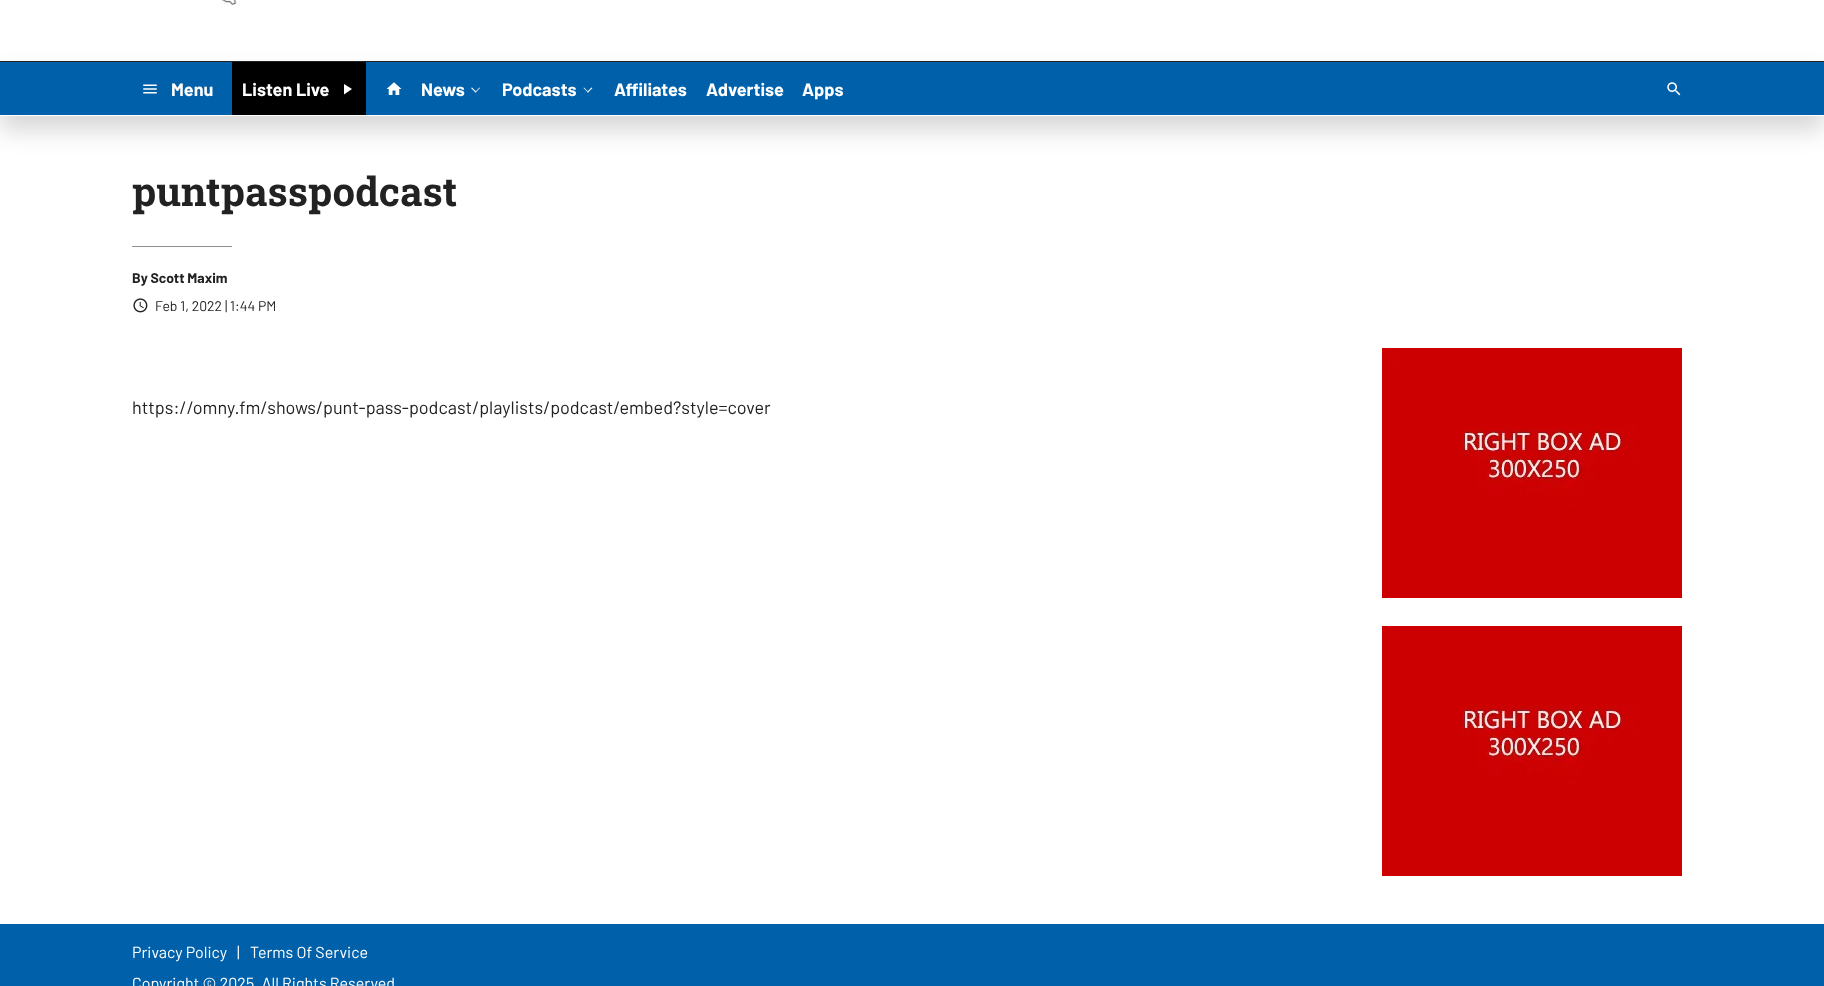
<svg xmlns="http://www.w3.org/2000/svg" width="1824" height="986">
<style>
.a{font:bold 18px Barlow;fill:#fff}
.b{font:bold 40px Roboto Slab;fill:#222}
.c{font:bold 14px Barlow;fill:#222}
.d{font:14px Barlow;fill:#222}
.e{font:18px Barlow;fill:#222}
.f{font:16px Barlow;fill:#fff}
</style>
<rect width="100%" height="100%" fill="#fff"/>
<path fill="#222" d="M0 61h1824v1H0z"/>
<image href="1.png" x="221" y="0" width="18" height="7"/>
<path fill="#00000029" filter="blur(12.5px)" d="M0 76h1824v54H0z"/>
<path fill="#0061aa" d="M0 62h1824v53H0z"/>
<path fill="#fff" d="M0 115h1824v1H0z"/>
<image href="2.png" x="143" y="84" width="14" height="10"/>
<path fill="#000" d="M232 62h134v53H232z"/>
<path fill="#fff" d="M344 84v10.5l8-5.5z"/>
<image href="3.png" x="386" y="82" width="16" height="13"/>
<path fill="#fff" d="M480 88l-4.5 4.5l-.5-.5l4.5-4.5z"/>
<path fill="#fff" d="M476.5 92l-1 .5l-4.5-4.5l1-.5z"/>
<path fill="#fff" d="M592.5 88l-4.5 4.5l-1-.5l4.5-4.5z"/>
<path fill="#fff" d="M588.5 92l-.5 .5l-4.5-4.5l.5-.5z"/>
<image href="4.png" x="1667" y="82" width="14" height="14"/>
<path fill="#919191" d="M132 246h100v1H132z"/>
<image href="5.png" x="133" y="298" width="15" height="15"/>
<image href="6.png" x="1382" y="348" width="300" height="250"/>
<image href="6.png" x="1382" y="626" width="300" height="250"/>
<path fill="#0061aa" d="M0 924h1824v62H0z"/>
<text class="a" x="171" y="96">Menu</text>
<text class="a" x="242" y="96">Listen Live</text>
<text class="a" x="421" y="96">News</text>
<text class="a" x="502" y="96">Podcasts</text>
<text class="a" x="614" y="96">Affiliates</text>
<text class="a" x="706" y="96">Advertise</text>
<text class="a" x="802" y="96">Apps</text>
<text class="b" x="132" y="206">puntpasspodcast</text>
<text class="c" x="132" y="283">By Scott Maxim</text>
<text class="d" x="155" y="311">Feb 1, 2022 | 1:44 PM</text>
<text class="e" x="132" y="414">https://omny.fm/shows/punt-pass-podcast/playlists/podcast/embed?style=cover</text>
<text class="f" x="132" y="958">Privacy Policy</text>
<text class="f" x="237" y="958">|</text>
<text class="f" x="250" y="958">Terms Of Service</text>
<text class="f" x="132" y="989">Copyright © 2025. All Rights Reserved</text>
</svg>
